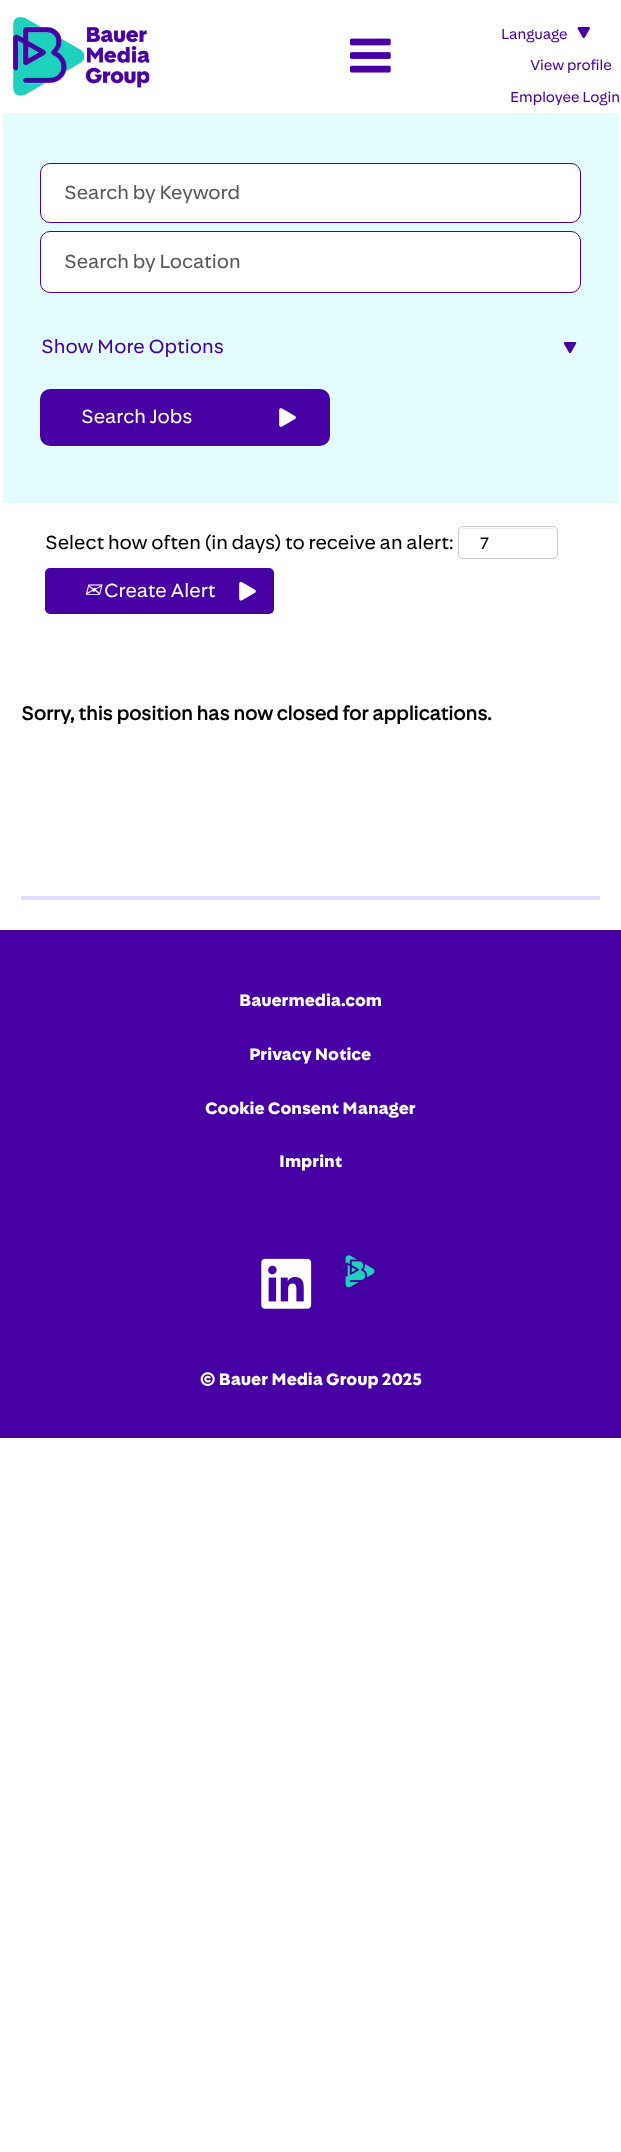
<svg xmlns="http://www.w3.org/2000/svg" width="621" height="2152">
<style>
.a{font:15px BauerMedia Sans;fill:#4700a3}
.b{font:20px BauerMedia Sans;fill:#595959}
.c{font:20px BauerMedia Sans;fill:#4700a3}
.d{font:20px BauerMedia Sans;fill:#fff}
.e{font:20px BauerMedia Sans;fill:#000}
.f{font:17.5px BauerMedia Sans;fill:#000}
.g{font:italic 20px DejaVu Sans;fill:#fff}
.h{font:bold 20px 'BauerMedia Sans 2';fill:#000}
.i{font:bold 17.5px BauerMedia Sans;fill:#fff}
</style>
<rect width="100%" height="100%" fill="#fff"/>
<image href="1.png" x="13" y="17" width="137" height="79"/>
<image href="2.png" x="350" y="38" width="41" height="35"/>
<image href="3.png" x="577" y="27" width="13" height="11"/>
<path fill="#e3fdff" d="M3 113h616v390H3z"/>
<rect fill="#fff" stroke="#4700a3" x="40.5" y="163.5" width="540" height="59" rx="9.5"/>
<rect fill="#fff" stroke="#4700a3" x="40.5" y="231.5" width="540" height="61" rx="9.5"/>
<image href="4.png" x="563" y="342" width="14" height="11"/>
<rect fill="#4700a3" x="40" y="389" width="290" height="57" rx="10"/>
<image href="5.png" x="279" y="408" width="17" height="19"/>
<path fill="#ececec" d="M462 529h91l3 1c-1-1-2-2-4-2h-89c-1 0-3 1-3 2z"/>
<rect fill="none" stroke="#ccc" x="458.5" y="526.5" width="99" height="32" rx="4.5"/>
<rect fill="#4700a3" x="45" y="568" width="229" height="46" rx="5"/>
<image href="6.png" x="239" y="581" width="17" height="20"/>
<path fill="#e1dcff" d="M21 896h579v4H21z"/>
<path fill="#4700a3" d="M0 930h621v508H0z"/>
<image href="7.png" x="261" y="1258" width="51" height="51"/>
<image href="8.png" x="345" y="1255" width="30" height="33"/>
<text class="a" x="501" y="39">Language</text>
<text class="a" x="530" y="70">View profile</text>
<text class="a" x="510" y="102">Employee Login</text>
<text class="b" x="64" y="199">Search by Keyword</text>
<text class="b" x="64" y="268">Search by Location</text>
<text class="c" x="41" y="353">Show More Options</text>
<text class="d" x="81" y="423">Search Jobs</text>
<text class="e" x="45" y="549">Select how often (in days) to receive an alert:</text>
<text class="f" x="480" y="549">7</text>
<text class="g" x="84" y="597">✉</text>
<text class="d" x="104" y="597">Create Alert</text>
<text class="h" x="21" y="720">Sorry, this position has now closed for applications.</text>
<text class="i" x="239" y="1006">Bauermedia.com</text>
<text class="i" x="249" y="1060">Privacy Notice</text>
<text class="i" x="205" y="1114">Cookie Consent Manager</text>
<text class="i" x="279" y="1167">Imprint</text>
<text class="i" x="200" y="1385">© Bauer Media Group 2025</text>
</svg>
